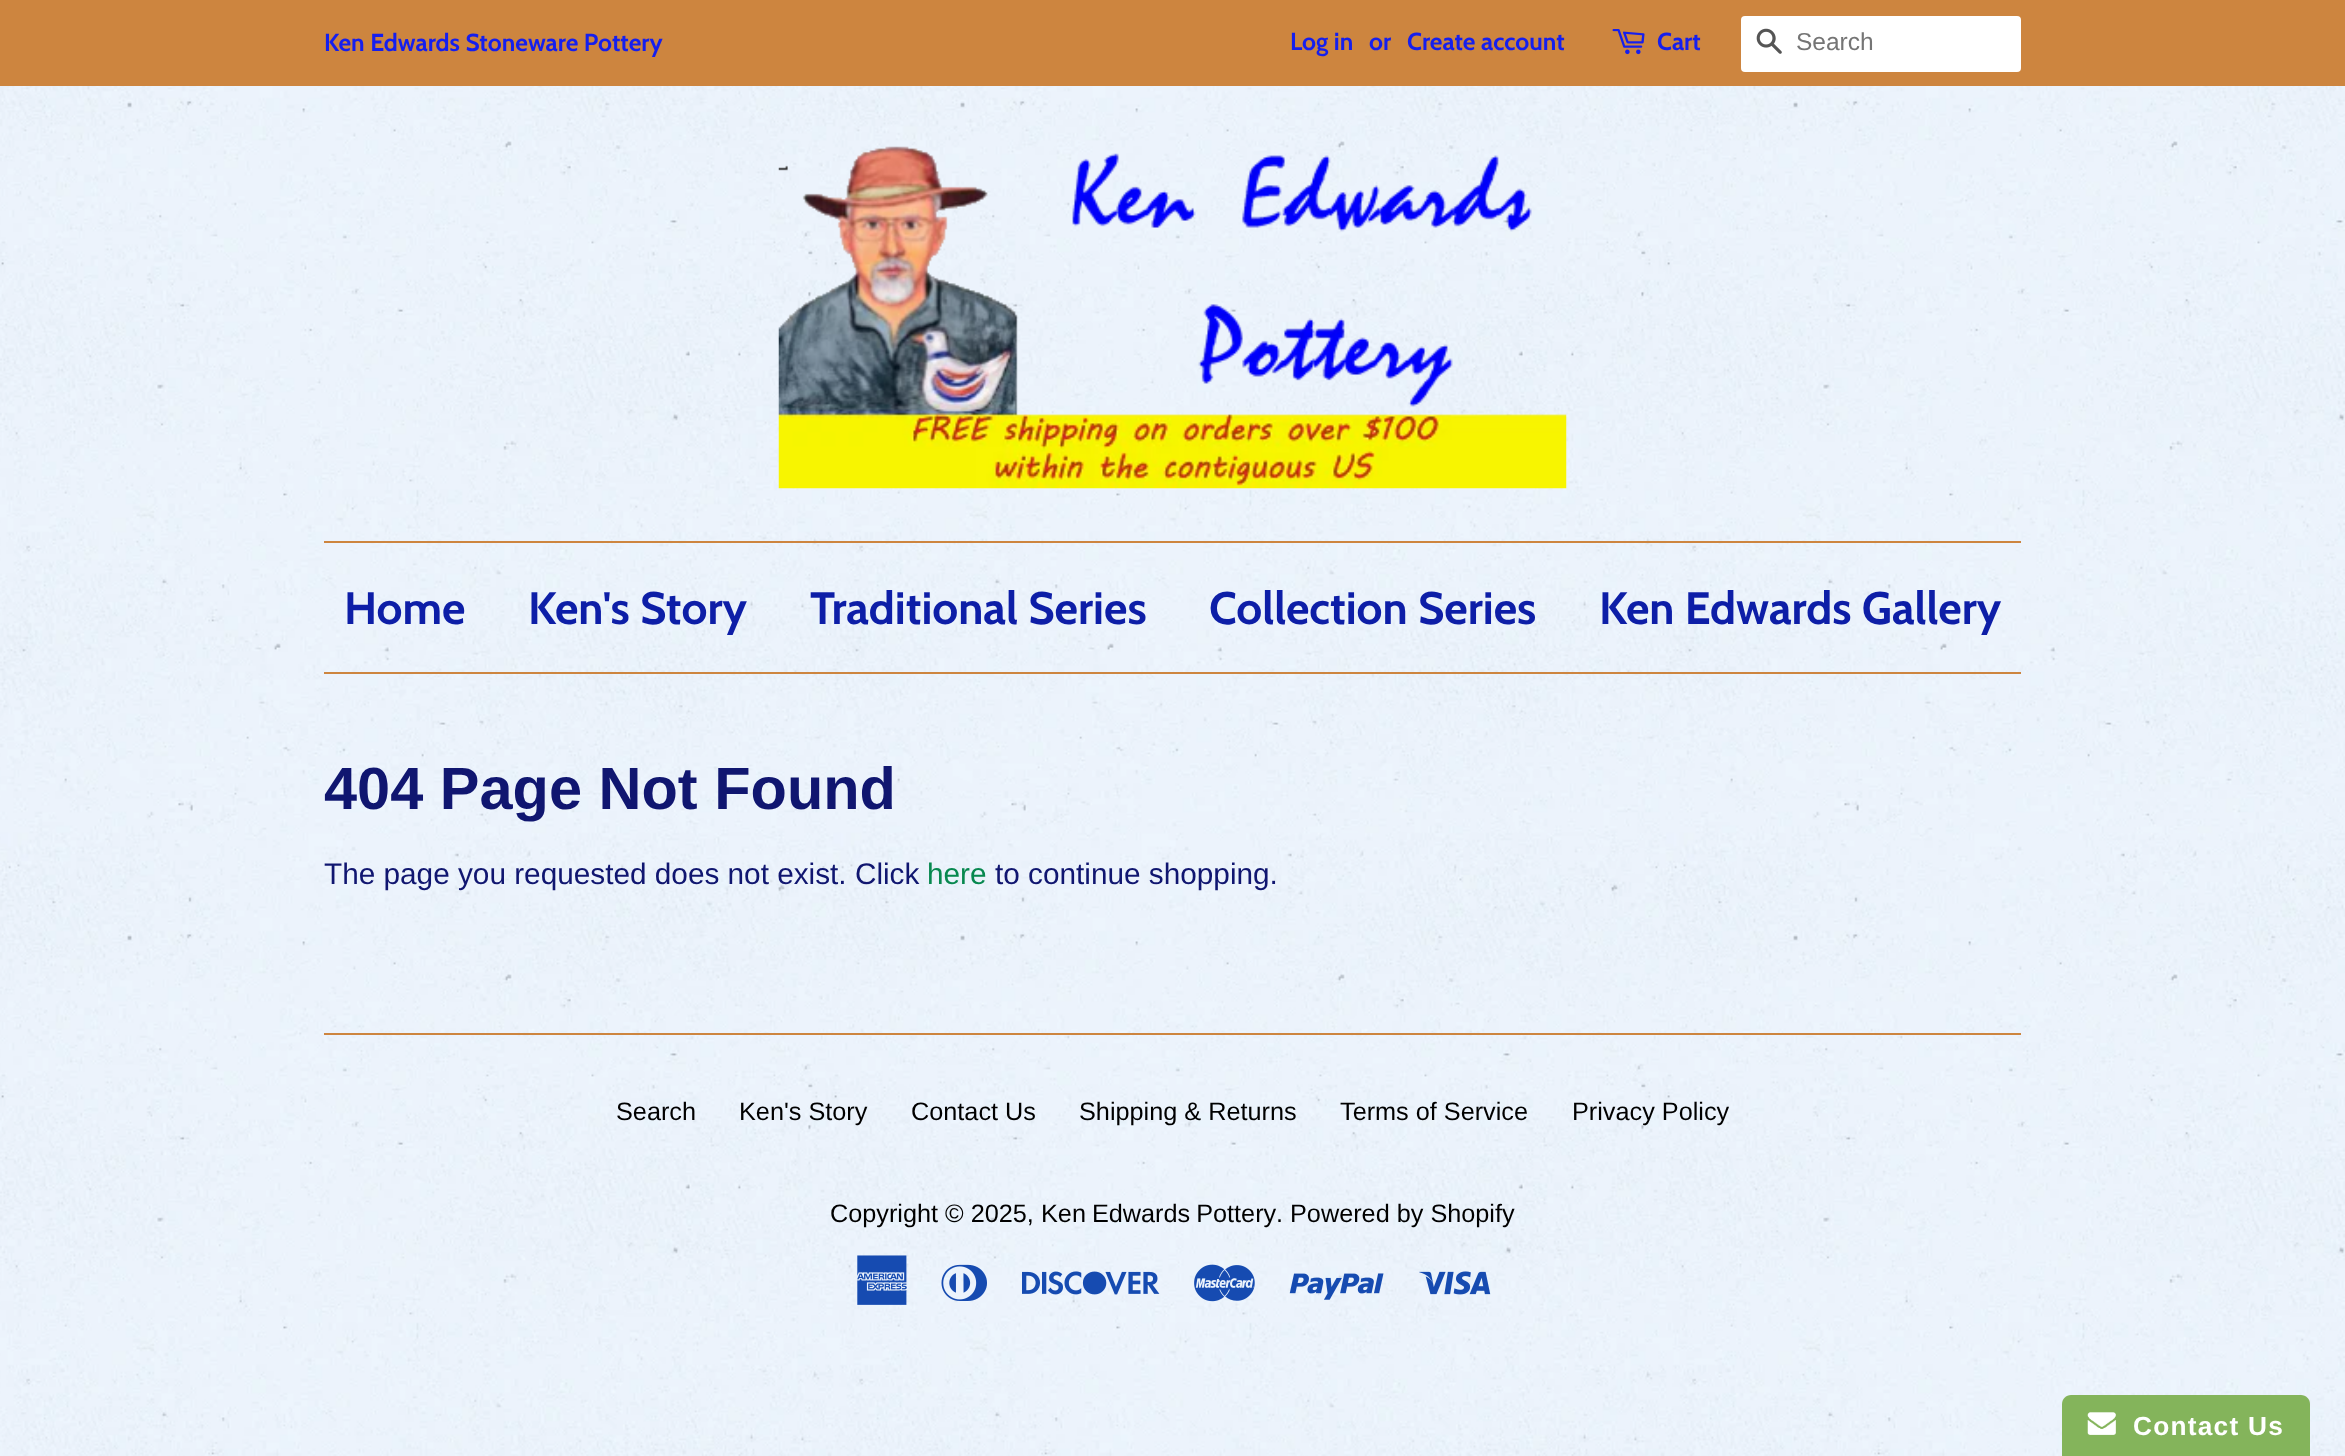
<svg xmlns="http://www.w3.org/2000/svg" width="2345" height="1456">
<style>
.a{font:bold 24.5px Cabin;fill:#151fee}
.b{font:24.5px Liberation Sans;fill:#757575}
.c{font:bold 45.5px Cabin;fill:#0d1ea7}
.d{font:bold 59.5px Liberation Sans;fill:#101670}
.e{font:29.75px Liberation Sans;fill:#101670}
.f{font:29.75px Liberation Sans;fill:#07884f}
.g{font:25.25px Liberation Sans;fill:#000}
.h{font:bold 26.25px Liberation Sans;letter-spacing:1.25px;fill:#fff}
</style>
<rect width="100%" height="100%" fill="#fff"/>
<image href="1.png" x="0" y="1363" width="2345" height="93"/>
<image href="2.png" x="0" y="86" width="2345" height="1277"/>
<path fill="#cd853f" d="M0 0h2345v86H0z"/>
<image href="3.png" x="1612" y="29" width="33" height="26"/>
<rect fill="#fff" x="1741" y="16" width="280" height="56" rx="4"/>
<image href="4.png" x="1756" y="28" width="26" height="26"/>
<image href="5.png" x="778" y="146" width="789" height="343"/>
<path fill="#cd853f" d="M324 541h1697v2H324z"/>
<path fill="#cd853f" d="M324 672h1697v2H324z"/>
<path fill="#cd853f" d="M324 1033h1697v2H324z"/>
<image href="6.png" x="857" y="1255" width="50" height="50"/>
<image href="7.png" x="941" y="1264" width="46" height="37"/>
<image href="8.png" x="1022" y="1271" width="138" height="24"/>
<image href="9.png" x="1194" y="1264" width="61" height="38"/>
<image href="10.png" x="1289" y="1273" width="95" height="27"/>
<image href="11.png" x="1419" y="1271" width="72" height="24"/>
<path fill="#84b45b" d="M2071 1395h230c5 0 9 4 9 9v52h-248v-52c0-5 4-9 9-9z"/>
<image href="12.png" x="2087" y="1412" width="29" height="23"/>
<text class="a" x="324" y="51">Ken Edwards Stoneware Pottery</text>
<text class="a" x="1290" y="50">Log in</text>
<text class="a" x="1369" y="50">or</text>
<text class="a" x="1407" y="50">Create account</text>
<text class="a" x="1657" y="50">Cart</text>
<text class="b" x="1796" y="50">Search</text>
<text class="c" x="344" y="624">Home</text>
<text class="c" x="528" y="624">Ken's Story</text>
<text class="c" x="810" y="624">Traditional Series</text>
<text class="c" x="1209" y="624">Collection Series</text>
<text class="c" x="1599" y="624">Ken Edwards Gallery</text>
<text class="d" x="324" y="809">404 Page Not Found</text>
<text class="e" x="324" y="884">The page you requested does not exist. Click</text>
<text class="f" x="927" y="884">here</text>
<text class="e" x="995" y="884">to continue shopping.</text>
<text class="g" x="616" y="1120">Search</text>
<text class="g" x="739" y="1120">Ken's Story</text>
<text class="g" x="911" y="1120">Contact Us</text>
<text class="g" x="1079" y="1120">Shipping &amp; Returns</text>
<text class="g" x="1340" y="1120">Terms of Service</text>
<text class="g" x="1572" y="1120">Privacy Policy</text>
<text class="g" x="830" y="1222">Copyright © 2025,</text>
<text class="g" x="1041" y="1222" word-spacing="-1">Ken Edwards Pottery</text>
<text class="g" x="1276" y="1222">. Powered by Shopify</text>
<text class="h" x="2133" y="1435">Contact Us</text>
</svg>
